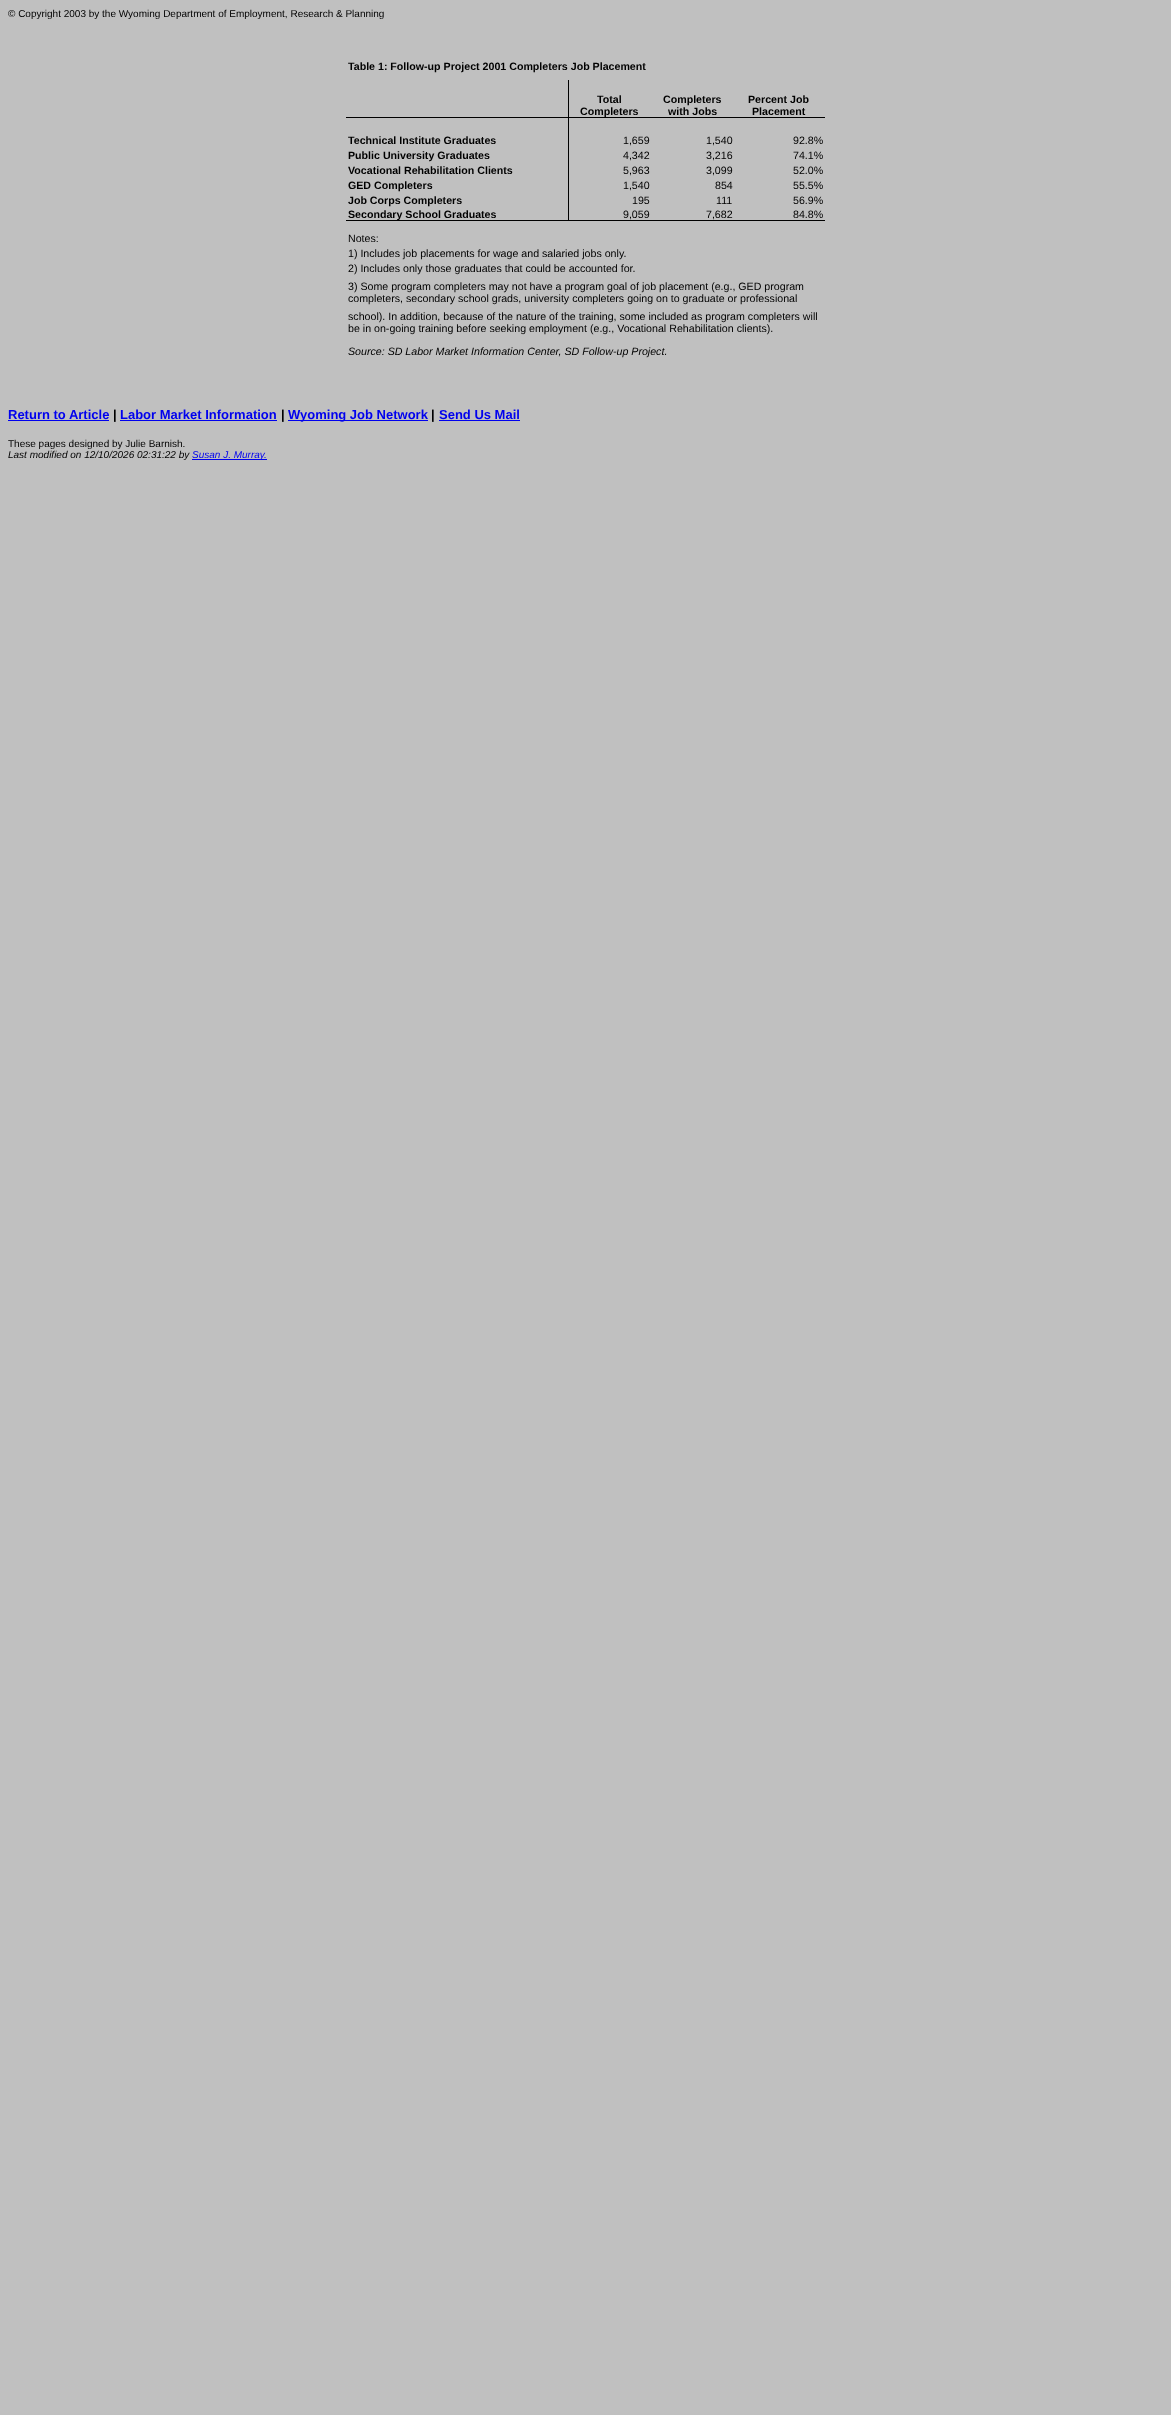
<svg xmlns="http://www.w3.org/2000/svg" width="1171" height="2415">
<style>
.a{font:10px Liberation Sans;fill:#000}
.b{font:bold 10.65px Liberation Sans;fill:#000}
.c{font:10.65px Liberation Sans;fill:#000}
.d{font:italic 10.65px Liberation Sans;fill:#000}
.e{font:bold 13px Liberation Sans;fill:#00e}
.f{font:bold 13px Liberation Sans;fill:#000}
.g{font:italic 10px Liberation Sans;fill:#000}
.h{font:italic 10px Liberation Sans;fill:#00e}
</style>
<rect width="100%" height="100%" fill="#c0c0c0"/>
<path fill="#000" d="M568 220h257v1H568z"/>
<path fill="#000" d="M568 117h1v104H568z"/>
<path fill="#000" d="M568 117h257v1H568z"/>
<path fill="#000" d="M568 80h1v38H568z"/>
<path fill="#000" d="M346 117h223v1H346z"/>
<path fill="#000" d="M346 220h223v1H346z"/>
<path fill="#00e" d="M8 420h101v1H8z"/>
<path fill="#00e" d="M120 420h157v1H120z"/>
<path fill="#00e" d="M288 420h140v1H288z"/>
<path fill="#00e" d="M439 420h81v1H439z"/>
<path fill="#00e" d="M192 459h75v1H192z"/>
<text class="a" x="8" y="17">© Copyright 2003 by the Wyoming Department of Employment, Research &amp; Planning</text>
<text class="b" x="348" y="70">Table 1: Follow-up Project 2001 Completers Job Placement</text>
<text class="b" x="597" y="103">Total</text>
<text class="b" x="580" y="115">Completers</text>
<text class="b" x="663" y="103">Completers</text>
<text class="b" x="668" y="115">with Jobs</text>
<text class="b" x="748" y="103">Percent Job</text>
<text class="b" x="752" y="115">Placement</text>
<text class="b" x="348" y="144">Technical Institute Graduates</text>
<text class="c" x="623" y="144">1,659</text>
<text class="c" x="706" y="144">1,540</text>
<text class="c" x="793" y="144">92.8%</text>
<text class="b" x="348" y="159">Public University Graduates</text>
<text class="c" x="623" y="159">4,342</text>
<text class="c" x="706" y="159">3,216</text>
<text class="c" x="793" y="159">74.1%</text>
<text class="b" x="348" y="174">Vocational Rehabilitation Clients</text>
<text class="c" x="623" y="174">5,963</text>
<text class="c" x="706" y="174">3,099</text>
<text class="c" x="793" y="174">52.0%</text>
<text class="b" x="348" y="189">GED Completers</text>
<text class="c" x="623" y="189">1,540</text>
<text class="c" x="715" y="189">854</text>
<text class="c" x="793" y="189">55.5%</text>
<text class="b" x="348" y="204">Job Corps Completers</text>
<text class="c" x="632" y="204">195</text>
<text class="c" x="716" y="204">111</text>
<text class="c" x="793" y="204">56.9%</text>
<text class="b" x="348" y="218">Secondary School Graduates</text>
<text class="c" x="623" y="218">9,059</text>
<text class="c" x="706" y="218">7,682</text>
<text class="c" x="793" y="218">84.8%</text>
<text class="c" x="348" y="242">Notes:</text>
<text class="c" x="348" y="257">1) Includes job placements for wage and salaried jobs only.</text>
<text class="c" x="348" y="272">2) Includes only those graduates that could be accounted for.</text>
<text class="c" x="348" y="290">3) Some program completers may not have a program goal of job placement (e.g., GED program</text>
<text class="c" x="348" y="302">completers, secondary school grads, university completers going</text>
<text class="c" x="656" y="302">on to graduate or professional</text>
<text class="c" x="348" y="320">school). In addition, because of the nature of the training, some included as program completers will</text>
<text class="c" x="348" y="332">be in on-going training before seeking employment (e.g., Vocational Rehabilitation clients).</text>
<text class="d" x="348" y="355">Source: SD Labor Market Information Center, SD Follow-up Project.</text>
<text class="e" x="8" y="419">Return to Article</text>
<text class="f" x="113" y="419">|</text>
<text class="e" x="120" y="419">Labor Market Information</text>
<text class="f" x="281" y="419">|</text>
<text class="e" x="288" y="419">Wyoming Job Network</text>
<text class="f" x="431" y="419">|</text>
<text class="e" x="439" y="419">Send Us Mail</text>
<text class="a" x="8" y="447">These pages designed by Julie Barnish.</text>
<text class="g" x="8" y="458">Last modified on 12/10/2026 02:31:22 by</text>
<text class="h" x="192" y="458">Susan J. Murray.</text>
</svg>
